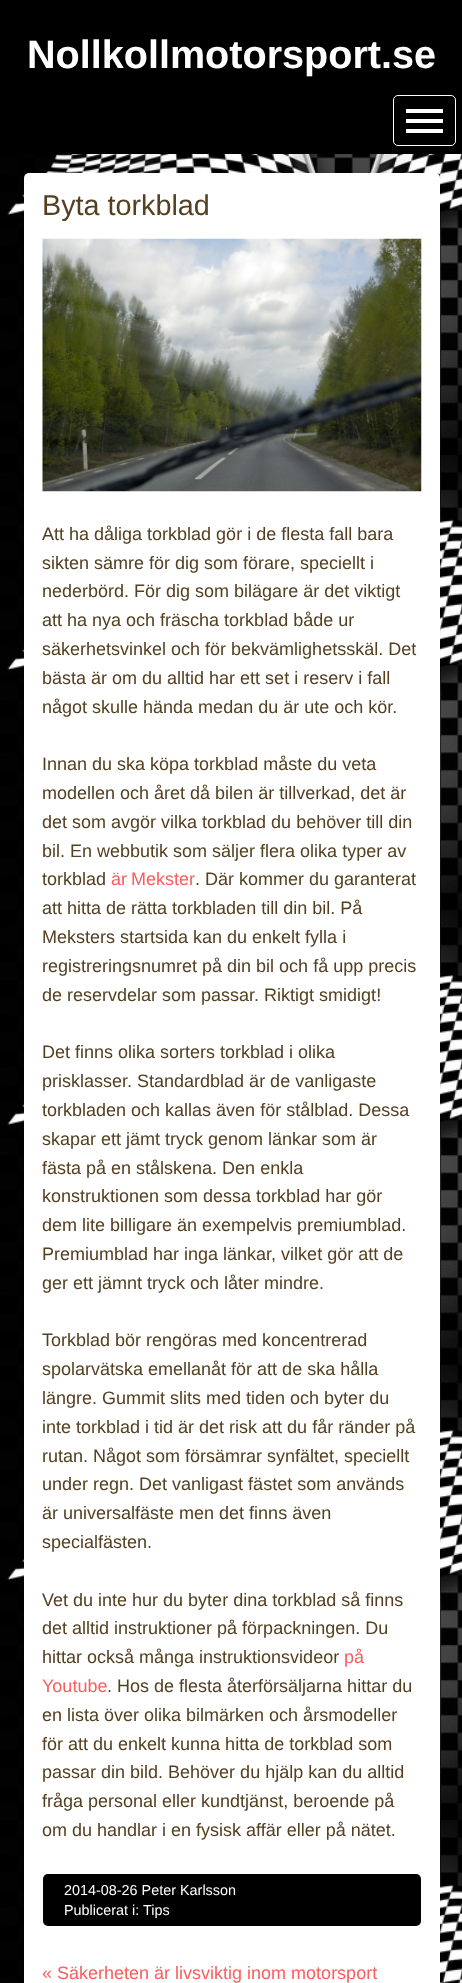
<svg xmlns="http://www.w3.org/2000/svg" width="462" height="1983">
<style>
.a{font:bold 39.6px Liberation Sans;fill:#fff}
.b{font:28.75px Liberation Sans;fill:#544021}
.c{font:18px Liberation Sans;fill:#544021}
.d{font:18px Liberation Sans;fill:#fa5d5d}
.e{font:14.4px Liberation Sans;fill:#fff}
</style>
<rect width="100%" height="100%" fill="#fff"/>
<image href="1.png" x="0" y="154" width="462" height="1829"/>
<path fill="#000" d="M0 0h462v154H0z"/>
<rect fill="none" stroke="#fff" x="393.5" y="95.5" width="62" height="50" rx="4.5"/>
<path fill="#fff" d="M406 109h37v4H406z"/>
<path fill="#fff" d="M406 119h37v4H406z"/>
<path fill="#fff" d="M406 129h37v4H406z"/>
<rect fill="#fff" x="24" y="173" width="416" height="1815" rx="5"/>
<image href="2.png" x="42" y="238" width="380" height="254"/>
<rect fill="#000" x="43" y="1874" width="378" height="52" rx="5"/>
<text class="a" x="27" y="68">Nollkollmotorsport.se</text>
<text class="b" x="42" y="215">Byta torkblad</text>
<text class="c" x="42" y="540">Att ha dåliga torkblad gör i de flesta fall bara</text>
<text class="c" x="42" y="569">sikten sämre för dig som förare, speciellt i</text>
<text class="c" x="42" y="597">nederbörd. För dig som bilägare är det viktigt</text>
<text class="c" x="42" y="626">att ha nya och fräscha torkblad både ur</text>
<text class="c" x="42" y="655">säkerhetsvinkel och för bekvämlighetsskäl. Det</text>
<text class="c" x="42" y="684">bästa är om du alltid har ett set i reserv i fall</text>
<text class="c" x="42" y="713">något skulle hända medan du är ute och kör.</text>
<text class="c" x="42" y="770">Innan du ska köpa torkblad måste du veta</text>
<text class="c" x="42" y="799">modellen och året då bilen är tillverkad, det är</text>
<text class="c" x="42" y="828">det som avgör vilka torkblad du behöver till din</text>
<text class="c" x="42" y="857">bil. En webbutik som säljer flera olika typer av</text>
<text class="c" x="42" y="885">torkblad</text>
<text class="d" x="111" y="885" word-spacing="-1">är Mekster</text>
<text class="c" x="195" y="885">. Där kommer du garanterat</text>
<text class="c" x="42" y="914">att hitta de rätta torkbladen till din bil. På</text>
<text class="c" x="42" y="943">Meksters startsida kan du enkelt fylla i</text>
<text class="c" x="42" y="972">registreringsnumret på din bil och få upp precis</text>
<text class="c" x="42" y="1001">de reservdelar som passar. Riktigt smidigt!</text>
<text class="c" x="42" y="1058">Det finns olika sorters torkblad i olika</text>
<text class="c" x="42" y="1087">prisklasser. Standardblad är de vanligaste</text>
<text class="c" x="42" y="1116">torkbladen och kallas även för stålblad. Dessa</text>
<text class="c" x="42" y="1145">skapar ett jämt tryck genom länkar som är</text>
<text class="c" x="42" y="1174">fästa på en stålskena. Den enkla</text>
<text class="c" x="42" y="1202">konstruktionen som dessa torkblad har gör</text>
<text class="c" x="42" y="1231">dem lite billigare än exempelvis premiumblad.</text>
<text class="c" x="42" y="1260">Premiumblad har inga länkar, vilket gör att de</text>
<text class="c" x="42" y="1289">ger ett jämnt tryck och låter mindre.</text>
<text class="c" x="42" y="1346">Torkblad bör rengöras med koncentrerad</text>
<text class="c" x="42" y="1375">spolarvätska emellanåt för att de ska hålla</text>
<text class="c" x="42" y="1404">längre. Gummit slits med tiden och byter du</text>
<text class="c" x="42" y="1433">inte torkblad i tid är det risk att du får ränder på</text>
<text class="c" x="42" y="1462">rutan. Något som försämrar synfältet, speciellt</text>
<text class="c" x="42" y="1490">under regn. Det vanligast fästet som används</text>
<text class="c" x="42" y="1519">är universalfäste men det finns även</text>
<text class="c" x="42" y="1548">specialfästen.</text>
<text class="c" x="42" y="1606">Vet du inte hur du byter dina torkblad så finns</text>
<text class="c" x="42" y="1634">det alltid instruktioner på förpackningen. Du</text>
<text class="c" x="42" y="1663">hittar också många instruktionsvideor</text>
<text class="d" x="344" y="1663">på</text>
<text class="d" x="42" y="1692">Youtube</text>
<text class="c" x="107" y="1692">. Hos de flesta återförsäljarna hittar du</text>
<text class="c" x="42" y="1721">en lista över olika bilmärken och årsmodeller</text>
<text class="c" x="42" y="1750">för att du enkelt kunna hitta de torkblad som</text>
<text class="c" x="42" y="1778">passar din bild. Behöver du hjälp kan du alltid</text>
<text class="c" x="42" y="1807">fråga personal eller kundtjänst, beroende på</text>
<text class="c" x="42" y="1836">om du handlar i en fysisk affär eller på nätet.</text>
<text class="e" x="64" y="1895">2014-08-26 Peter Karlsson</text>
<text class="e" x="64" y="1915">Publicerat i: Tips</text>
<text class="d" x="42" y="1979">« Säkerheten är livsviktig inom motorsport</text>
</svg>
